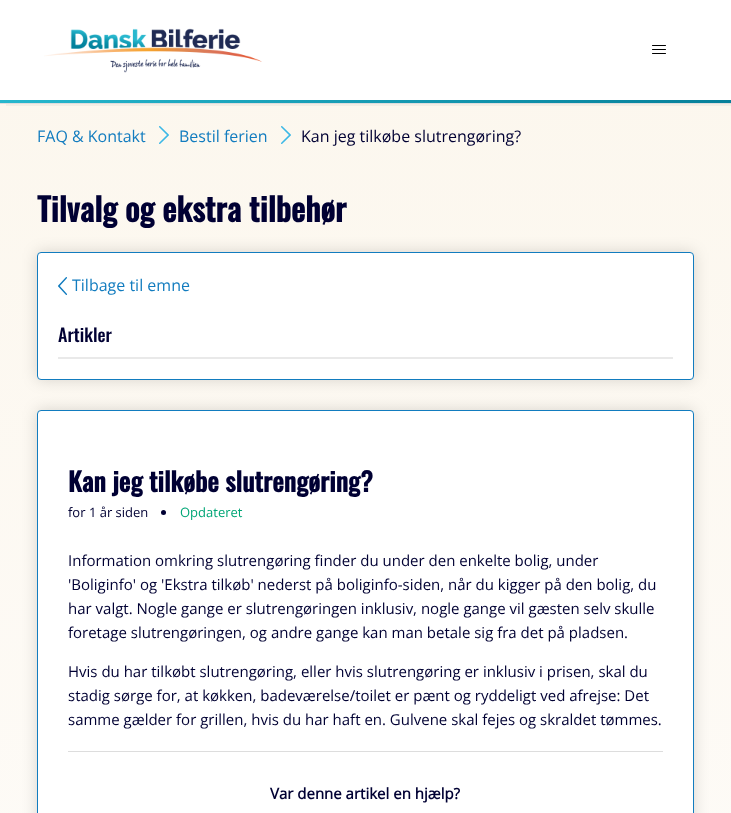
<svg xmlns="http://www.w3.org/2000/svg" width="731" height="813">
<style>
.a{font:16px Open Sans;fill:#127cbf}
.b{font:16px Open Sans;fill:#003}
.c{font:bold 32px Oswald;fill:#003}
.d{font:500 18px Oswald;fill:#003}
.e{font:bold 26px Oswald;fill:#003}
.f{font:13px Open Sans;fill:#003}
.g{font:13px Open Sans;fill:#00a676}
.h{font:15px Open Sans;fill:#003}
.i{font:bold 15px Open Sans;fill:#003}
</style>
<defs>
<linearGradient id="g1" gradientUnits="userSpaceOnUse" x1="0" y1="102" x2="731" y2="101"><stop offset="0" stop-color="#26b7cd"/><stop offset="1" stop-color="#06809a"/></linearGradient>
<linearGradient id="g2" gradientUnits="userSpaceOnUse" x1="365" y1="103" x2="366" y2="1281"><stop offset="0" stop-color="#f5e5c7" stop-opacity="0.3"/><stop offset="1" stop-color="#fdf8f2" stop-opacity="0.3"/></linearGradient>
</defs>
<rect width="100%" height="100%" fill="#fff"/>
<image href="1.png" x="44" y="28" width="218" height="45"/>
<path fill="none" stroke="#000" stroke-linecap="round" d="M652.5 45.5h13m-13 4h13m-13 4h13"/>
<path fill="#f2f2f2" d="M6 104h725v2H6z"/>
<path fill="url(#g1)" d="M0 100h731v3H0z"/>
<path fill="url(#g2)" d="M0 104h731v709H0z"/>
<path fill="#ddd" d="M0 103h731v1H0z"/>
<image href="2.png" x="159" y="126" width="10" height="18"/>
<image href="2.png" x="281" y="126" width="10" height="18"/>
<rect fill="#00000026" filter="blur(7.5px)" x="37" y="252" width="657" height="128" rx="4"/>
<rect fill="#fff" stroke="#127cbf" x="37.5" y="252.5" width="656" height="127" rx="3.5"/>
<image href="3.png" x="58" y="277" width="9" height="18"/>
<path fill="#e9e9e9" d="M58 357h615v2H58z"/>
<rect fill="#00000026" filter="blur(7.5px)" x="37" y="410" width="657" height="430" rx="4"/>
<rect fill="#fff" stroke="#127cbf" x="37.5" y="410.5" width="656" height="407" rx="3.5"/>
<circle fill="#003" cx="163.5" cy="512.5" r="2.5"/>
<path fill="#ddd" d="M68 751h595v1H68z"/>
<text class="a" x="37" y="142">FAQ &amp; Kontakt</text>
<text class="a" x="179" y="142">Bestil ferien</text>
<text class="b" x="301" y="142">Kan jeg tilkøbe slutrengøring?</text>
<text class="c" x="37" y="222">Tilvalg og ekstra tilbehør</text>
<text class="a" x="72" y="291">Tilbage til emne</text>
<text class="d" x="58" y="342">Artikler</text>
<text class="e" x="68" y="492">Kan jeg tilkøbe slutrengøring?</text>
<text class="f" x="68" y="517">for 1 år siden</text>
<text class="g" x="180" y="517">Opdateret</text>
<text class="h" x="68" y="566">Information omkring slutrengøring finder du under den enkelte bolig, under</text>
<text class="h" x="68" y="590">'Boliginfo' og 'Ekstra tilkøb' nederst på boliginfo-siden, når du kigger på den bolig, du</text>
<text class="h" x="68" y="614">har valgt. Nogle gange er slutrengøringen inklusiv, nogle gange vil gæsten selv skulle</text>
<text class="h" x="68" y="638">foretage slutrengøringen, og andre gange kan man betale sig fra det på pladsen.</text>
<text class="h" x="68" y="677">Hvis du har tilkøbt slutrengøring, eller hvis slutrengøring er inklusiv i prisen, skal du</text>
<text class="h" x="68" y="701">stadig sørge for, at køkken, badeværelse/toilet er pænt og ryddeligt ved afrejse: Det</text>
<text class="h" x="68" y="725">samme gælder for grillen, hvis du har haft en. Gulvene skal fejes og skraldet tømmes.</text>
<text class="i" x="270" y="799">Var denne artikel en hjælp?</text>
</svg>
